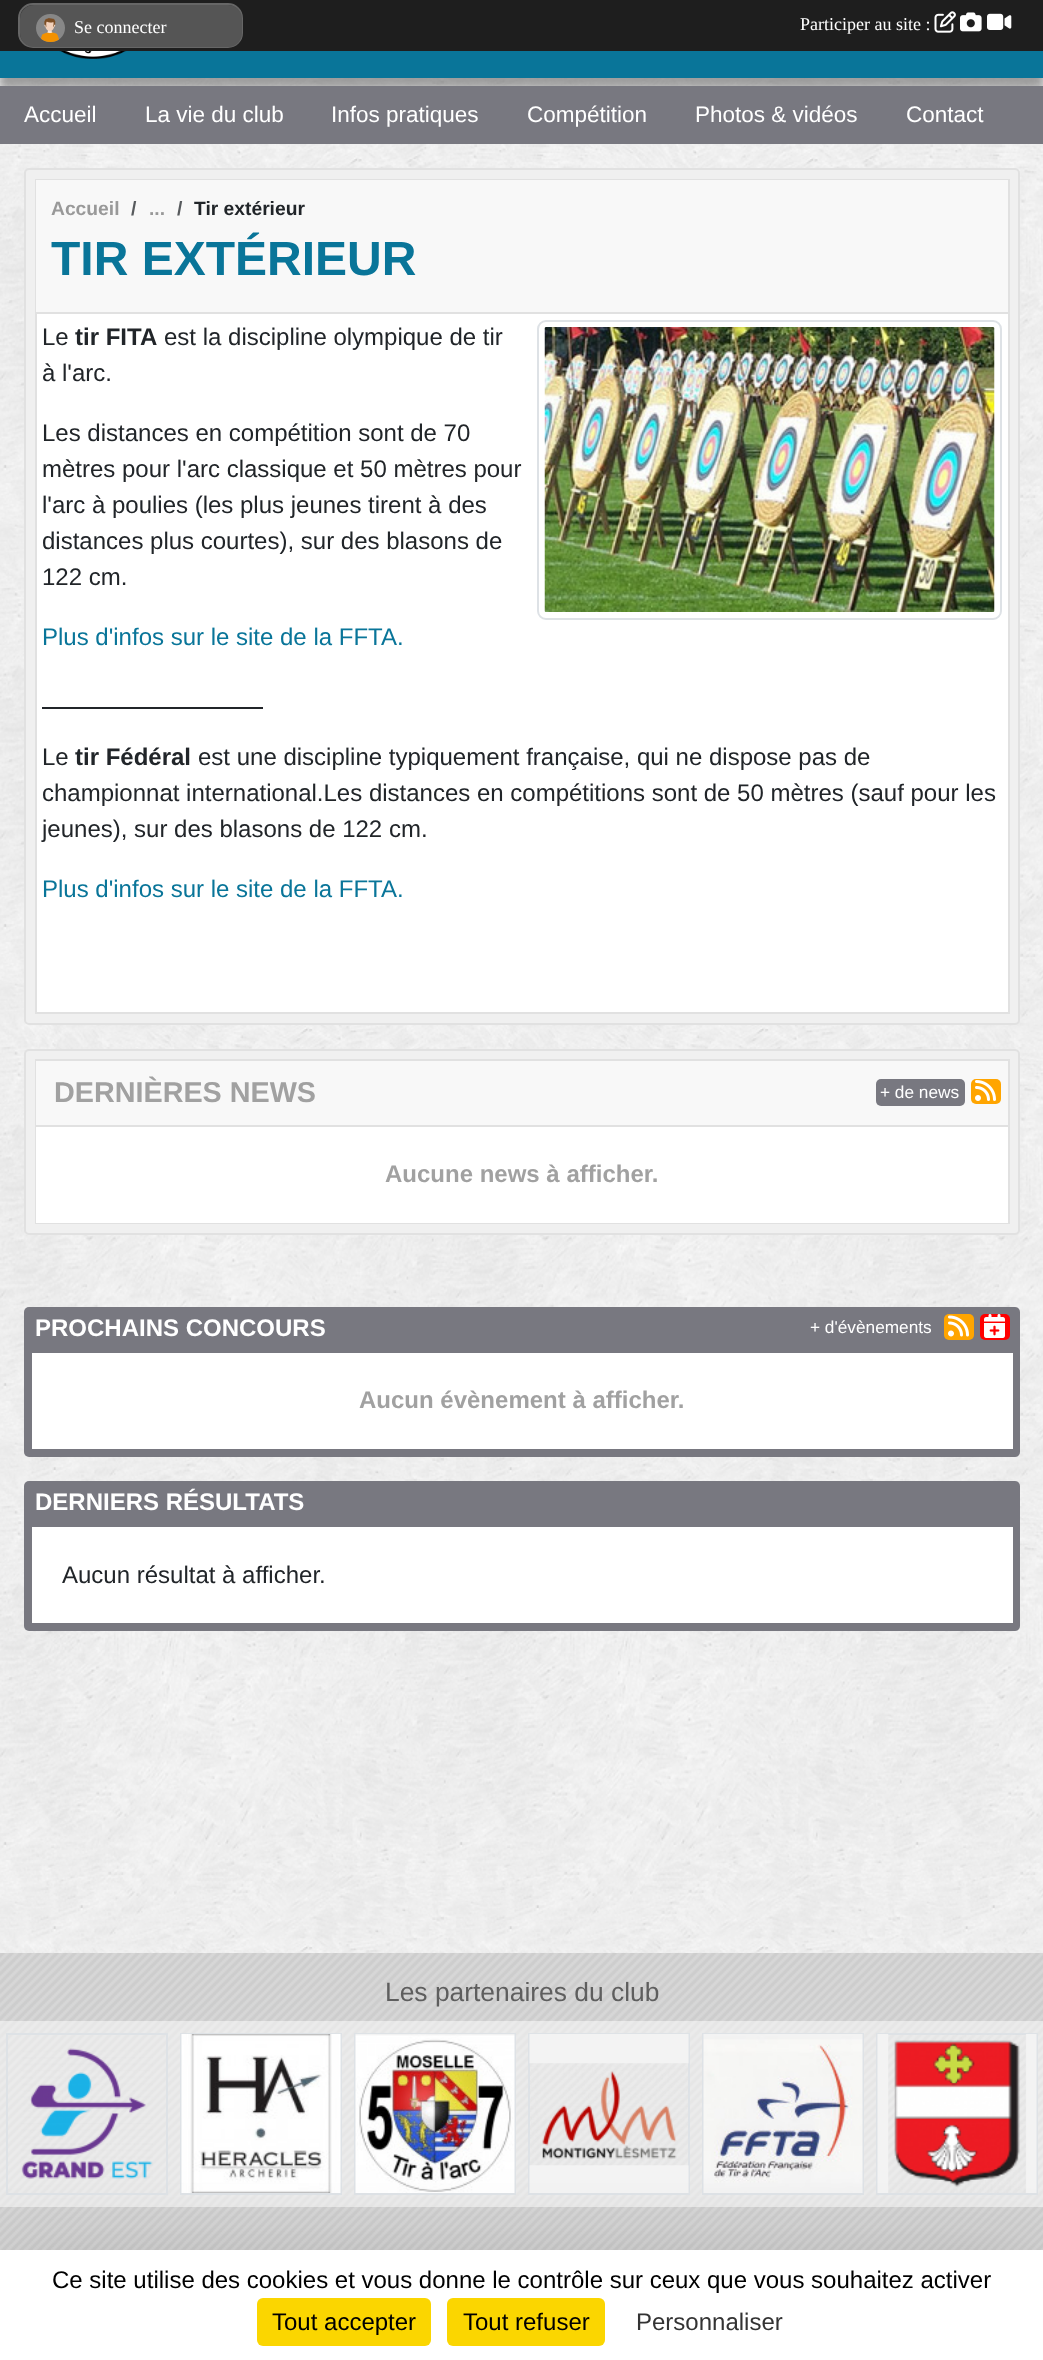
<svg xmlns="http://www.w3.org/2000/svg" width="1043" height="2360">
<style>
.a{font:18px Liberation Serif;fill:#fff}
.b{font:22.5px Liberation Sans;fill:#fff}
.c{font:bold 19.25px Liberation Sans;fill:#999}
.d{font:bold 19.25px Liberation Sans;fill:#575a5d}
.e{font:bold 19.25px Liberation Sans;fill:#212529}
.f{font:bold 48px Liberation Sans;fill:#097599}
.g{font:24px Liberation Sans;fill:#212529}
.h{font:bold 24px Liberation Sans;fill:#212529}
.i{font:24px Liberation Sans;fill:#097599}
.j{font:bold 28.75px Liberation Sans;fill:#a1a1a1}
.k{font:bold 24px Liberation Sans;fill:#a1a1a1}
.l{font:17.25px Liberation Sans;fill:#fff}
.m{font:bold 24px Liberation Sans;fill:#fff}
.n{font:26.4px Liberation Sans;fill:#5e5e5e}
.o{font:24px Liberation Sans;fill:#000}
.p{font:24px Liberation Sans;fill:#333}
</style>
<rect width="100%" height="100%" fill="#fff"/>
<image href="1.png" x="0" y="78" width="1043" height="1875"/>
<path fill="#50505080" filter="blur(4px)" d="M0 -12h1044v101H0z"/>
<path fill="#1e1e1e" d="M0 0h1043v51H0z"/>
<rect fill="#333" stroke="#666" stroke-width="2" x="19" y="4" width="223" height="43" rx="14"/>
<rect fill="#555" x="20" y="5" width="222" height="42" rx="14"/>
<image href="2.png" x="36" y="14" width="29" height="28"/>
<image href="3.png" x="934" y="11" width="22" height="22"/>
<image href="4.png" x="960" y="12" width="22" height="20"/>
<image href="5.png" x="987" y="13" width="25" height="17"/>
<path fill="#097599" d="M0 51h1043v27H0z"/>
<image href="6.png" x="59" y="51" width="68" height="9"/>
<path fill="#787880" d="M0 86h1043v58H0z"/>
<rect fill="#f0f0f0" stroke="#e1e1e1" stroke-width="2" x="25" y="169" width="994" height="855" rx="4"/>
<path fill="#fff" d="M37 314h971v698H37z"/>
<path fill="none" stroke="#e1e1e1" stroke-width="2" d="M36 180h973v833H36z"/>
<path fill="#f8f8f8" d="M36 180h972v132H36z"/>
<path fill="#e1e1e1" d="M36 312h972v2H36z"/>
<rect fill="none" stroke="#dee2e6" stroke-width="2" x="538" y="321" width="463" height="298" rx="8"/>
<image href="7.png" x="544" y="327" width="451" height="285"/>
<path fill="#212529" d="M42 707h221v2H42z"/>
<rect fill="#f0f0f0" stroke="#e1e1e1" stroke-width="2" x="25" y="1050" width="994" height="184" rx="4"/>
<path fill="none" stroke="#e1e1e1" stroke-width="2" d="M36 1060h973v163H36z"/>
<path fill="#f8f8f8" d="M36 1061h972v64H36z"/>
<path fill="#e1e1e1" d="M36 1125h972v2H36z"/>
<path fill="#fff" d="M36 1127h972v96H36z"/>
<rect fill="#787880" x="876" y="1079" width="89" height="27" rx="5"/>
<rect fill="#ffa500" x="971" y="1079" width="30" height="25" rx="5"/>
<image href="8.png" x="975" y="1080" width="21" height="21"/>
<rect fill="#787880" x="24" y="1307" width="996" height="150" rx="5"/>
<rect fill="#ffa500" x="944" y="1314" width="30" height="26" rx="5"/>
<image href="9.png" x="948" y="1315" width="21" height="22"/>
<rect fill="#f00" x="980" y="1314" width="30" height="26" rx="5"/>
<image href="10.png" x="984" y="1314" width="21" height="24"/>
<path fill="#fff" d="M32 1353h981v96H32z"/>
<rect fill="#787880" x="24" y="1481" width="996" height="150" rx="5"/>
<path fill="#fff" d="M32 1527h981v96H32z"/>
<image href="11.png" x="0" y="1953" width="1043" height="297"/>
<path fill="#ffffff80" d="M0 2021h174v186H0z"/>
<path fill="none" stroke="#dee2e6" stroke-width="2" d="M7 2034h160v160H7z"/>
<image href="12.png" x="21" y="2048" width="132" height="131"/>
<path fill="#ffffff80" d="M174 2021h174v186H174z"/>
<path fill="none" stroke="#dee2e6" stroke-width="2" d="M181 2034h160v160H181z"/>
<image href="13.png" x="181" y="2034" width="160" height="159"/>
<path fill="#ffffff80" d="M348 2021h174v186H348z"/>
<path fill="none" stroke="#dee2e6" stroke-width="2" d="M355 2034h160v160H355z"/>
<image href="14.png" x="355" y="2034" width="160" height="159"/>
<path fill="#ffffff80" d="M522 2021h174v186H522z"/>
<path fill="none" stroke="#dee2e6" stroke-width="2" d="M529 2034h160v160H529z"/>
<image href="15.png" x="529" y="2034" width="160" height="159"/>
<path fill="#ffffff80" d="M696 2021h174v186H696z"/>
<path fill="none" stroke="#dee2e6" stroke-width="2" d="M703 2034h160v160H703z"/>
<image href="16.png" x="703" y="2034" width="160" height="159"/>
<path fill="#ffffff80" d="M870 2021h173v186H870z"/>
<path fill="none" stroke="#dee2e6" stroke-width="2" d="M877 2034h160v160H877z"/>
<image href="17.png" x="877" y="2034" width="160" height="159"/>
<path fill="#00000040" filter="blur(45px)" d="M0 2280h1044v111H0z"/>
<path fill="#fff" d="M0 2250h1043v110H0z"/>
<rect fill="#fbd600" x="257" y="2298" width="174" height="48" rx="6"/>
<rect fill="#fbd600" x="447" y="2298" width="158" height="48" rx="6"/>
<text class="a" x="74" y="33">Se connecter</text>
<text class="a" x="800" y="30">Participer au site :</text>
<text class="b" x="24" y="122">Accueil</text>
<text class="b" x="145" y="122">La vie du club</text>
<text class="b" x="331" y="122">Infos pratiques</text>
<text class="b" x="527" y="122">Compétition</text>
<text class="b" x="695" y="122">Photos &amp; vidéos</text>
<text class="b" x="906" y="122">Contact</text>
<text class="c" x="51" y="215">Accueil</text>
<text class="d" x="131" y="215">/</text>
<text class="c" x="149" y="215">...</text>
<text class="d" x="177" y="215">/</text>
<text class="e" x="194" y="215">Tir extérieur</text>
<text class="f" x="51" y="275">TIR EXTÉRIEUR</text>
<text class="g" x="42" y="345">Le</text>
<text class="h" x="75" y="345">tir FITA</text>
<text class="g" x="164" y="345">est la discipline olympique de tir</text>
<text class="g" x="42" y="381">à l'arc.</text>
<text class="g" x="42" y="441">Les distances en compétition sont de 70</text>
<text class="g" x="42" y="477">mètres pour l'arc classique et 50 mètres pour</text>
<text class="g" x="42" y="513">l'arc à poulies (les plus jeunes tirent à des</text>
<text class="g" x="42" y="549">distances plus courtes), sur des blasons de</text>
<text class="g" x="42" y="585">122 cm.</text>
<text class="i" x="42" y="645">Plus d'infos sur le site de la FFTA.</text>
<text class="g" x="42" y="765">Le</text>
<text class="h" x="75" y="765">tir Fédéral</text>
<text class="g" x="198" y="765">est une discipline typiquement française, qui ne dispose pas de</text>
<text class="g" x="42" y="801">championnat international.Les distances en compétitions sont de 50 mètres (sauf pour les</text>
<text class="g" x="42" y="837">jeunes), sur des blasons de 122 cm.</text>
<text class="i" x="42" y="897">Plus d'infos sur le site de la FFTA.</text>
<text class="j" x="54" y="1102">DERNIÈRES NEWS</text>
<text class="k" x="385" y="1182">Aucune news à afficher.</text>
<text class="l" x="880" y="1098">+ de news</text>
<text class="m" x="35" y="1336">PROCHAINS CONCOURS</text>
<text class="l" x="810" y="1333">+ d'évènements</text>
<text class="k" x="359" y="1408">Aucun évènement à afficher.</text>
<text class="m" x="35" y="1510">DERNIERS RÉSULTATS</text>
<text class="g" x="62" y="1583">Aucun résultat à afficher.</text>
<text class="n" x="385" y="2001">Les partenaires du club</text>
<text class="o" x="52" y="2288">Ce site utilise des cookies et vous donne le contrôle sur ceux que vous souhaitez activer</text>
<text class="o" x="272" y="2330">Tout accepter</text>
<text class="o" x="463" y="2330">Tout refuser</text>
<text class="p" x="636" y="2330">Personnaliser</text>
</svg>
